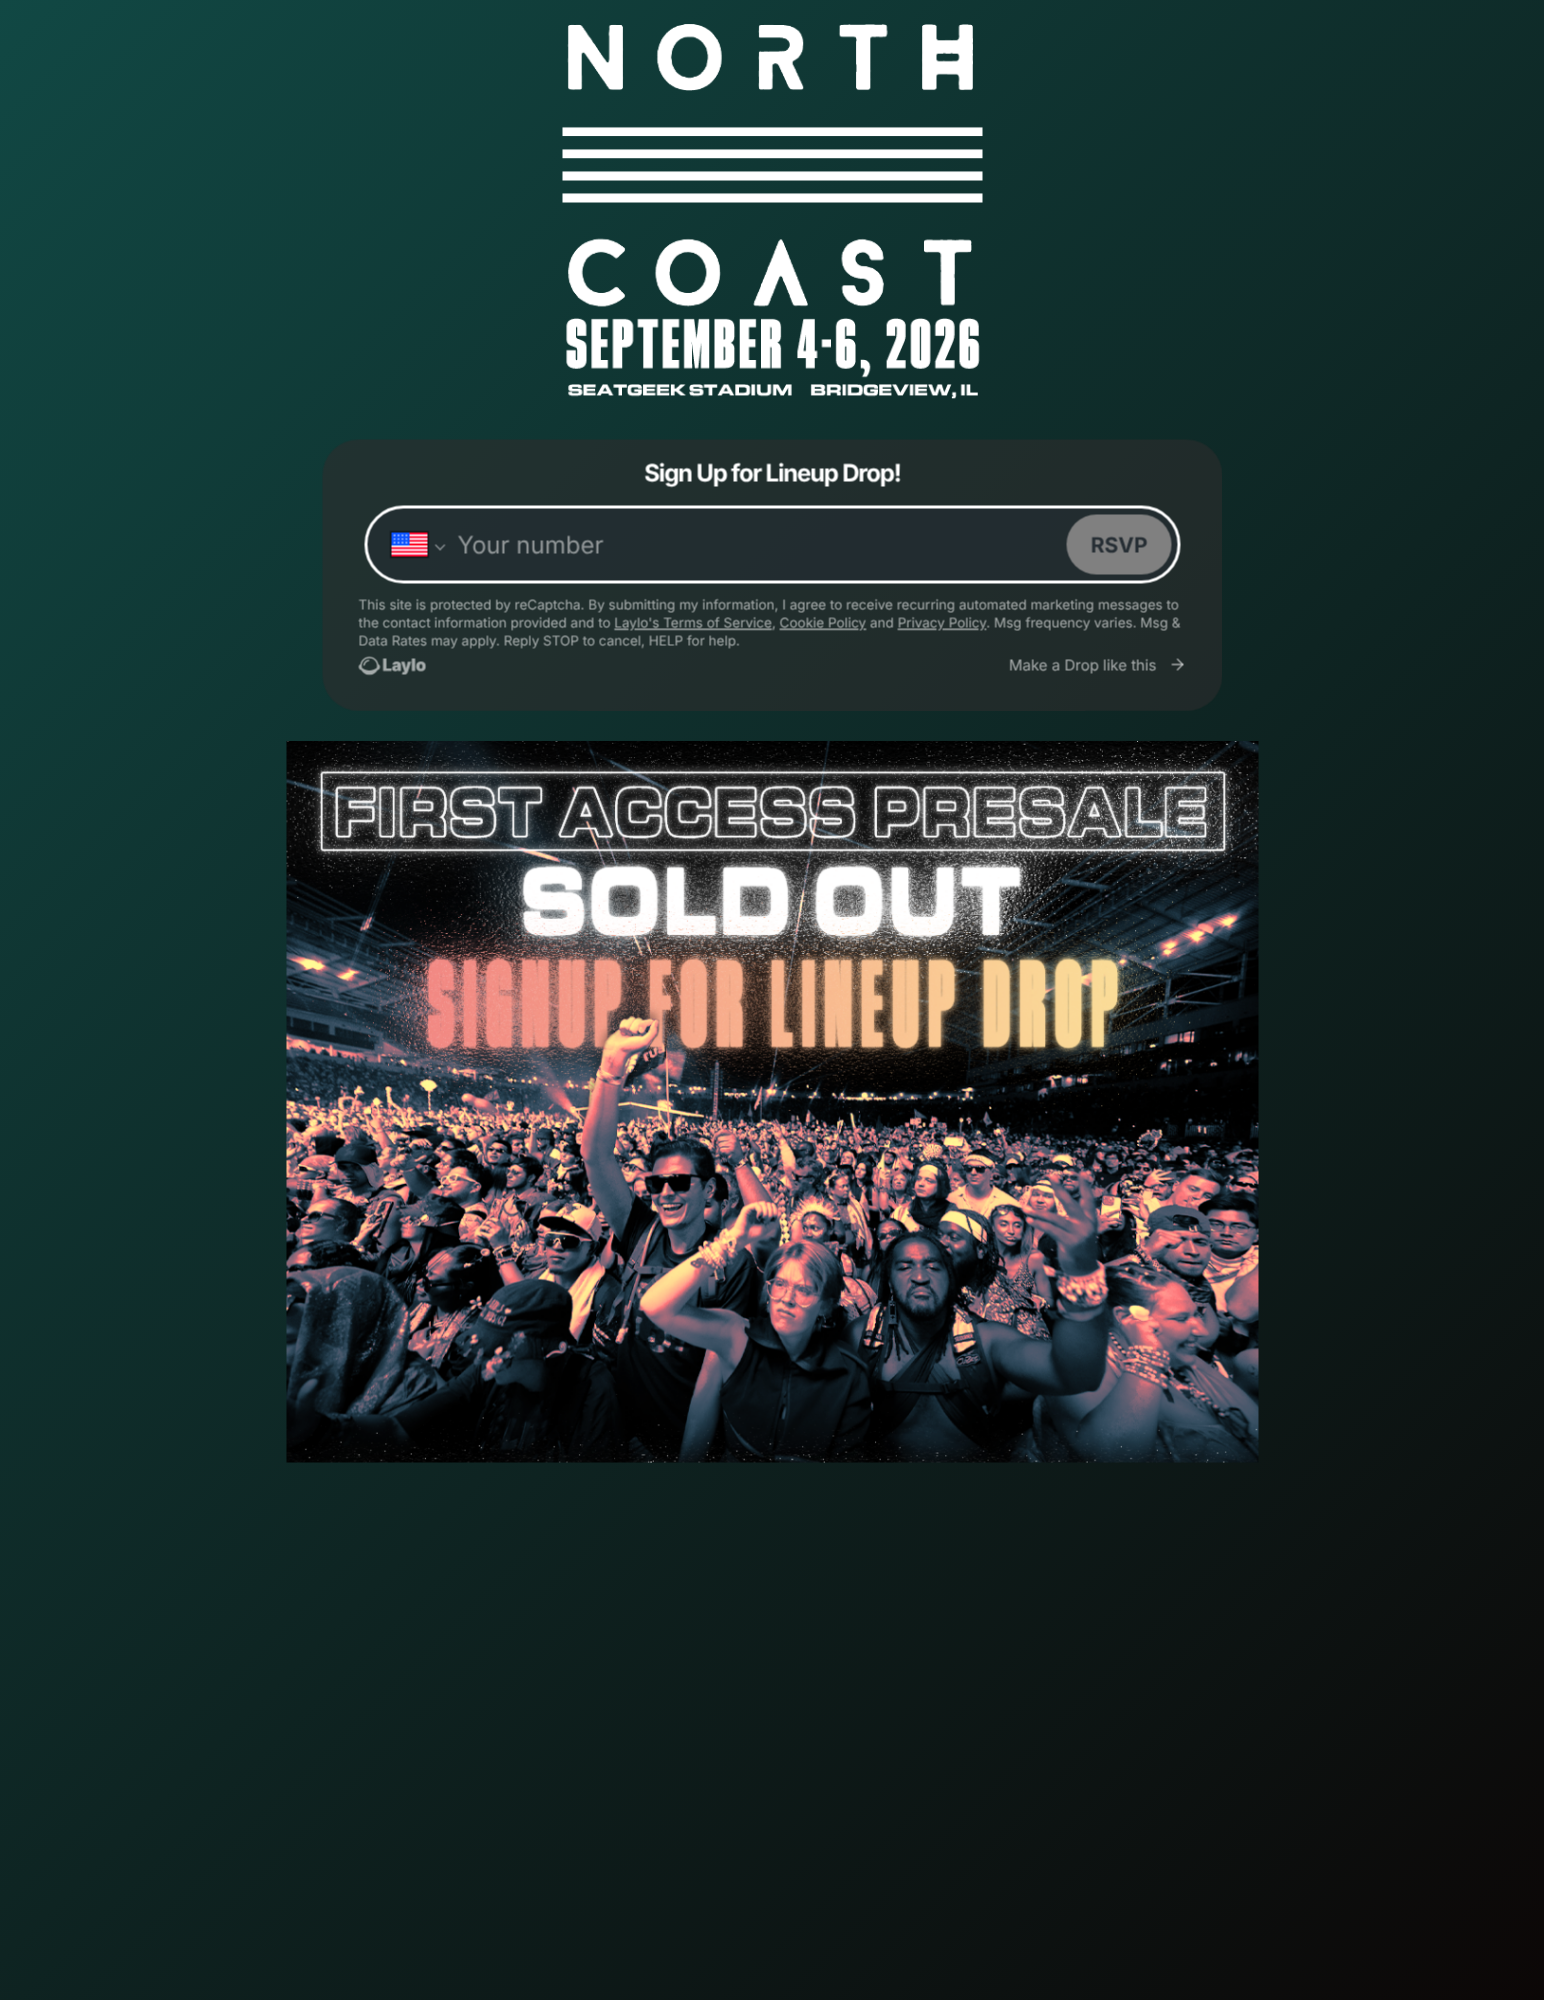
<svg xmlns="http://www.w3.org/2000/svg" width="1544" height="2000">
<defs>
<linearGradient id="g1" gradientUnits="userSpaceOnUse" x1="-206" y1="206" x2="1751" y2="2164"><stop offset="0" stop-color="#114844"/><stop offset="1" stop-color="#0b0000"/></linearGradient>
</defs>
<rect width="100%" height="100%" fill="#fff"/>
<path fill="url(#g1)" d="M0 0h1544v2000H0z"/>
<image href="1.png" x="562" y="24" width="421" height="375"/>
<image href="2.png" x="322" y="439" width="900" height="272"/>
<image href="3.png" x="286" y="741" width="973" height="722"/>
</svg>
